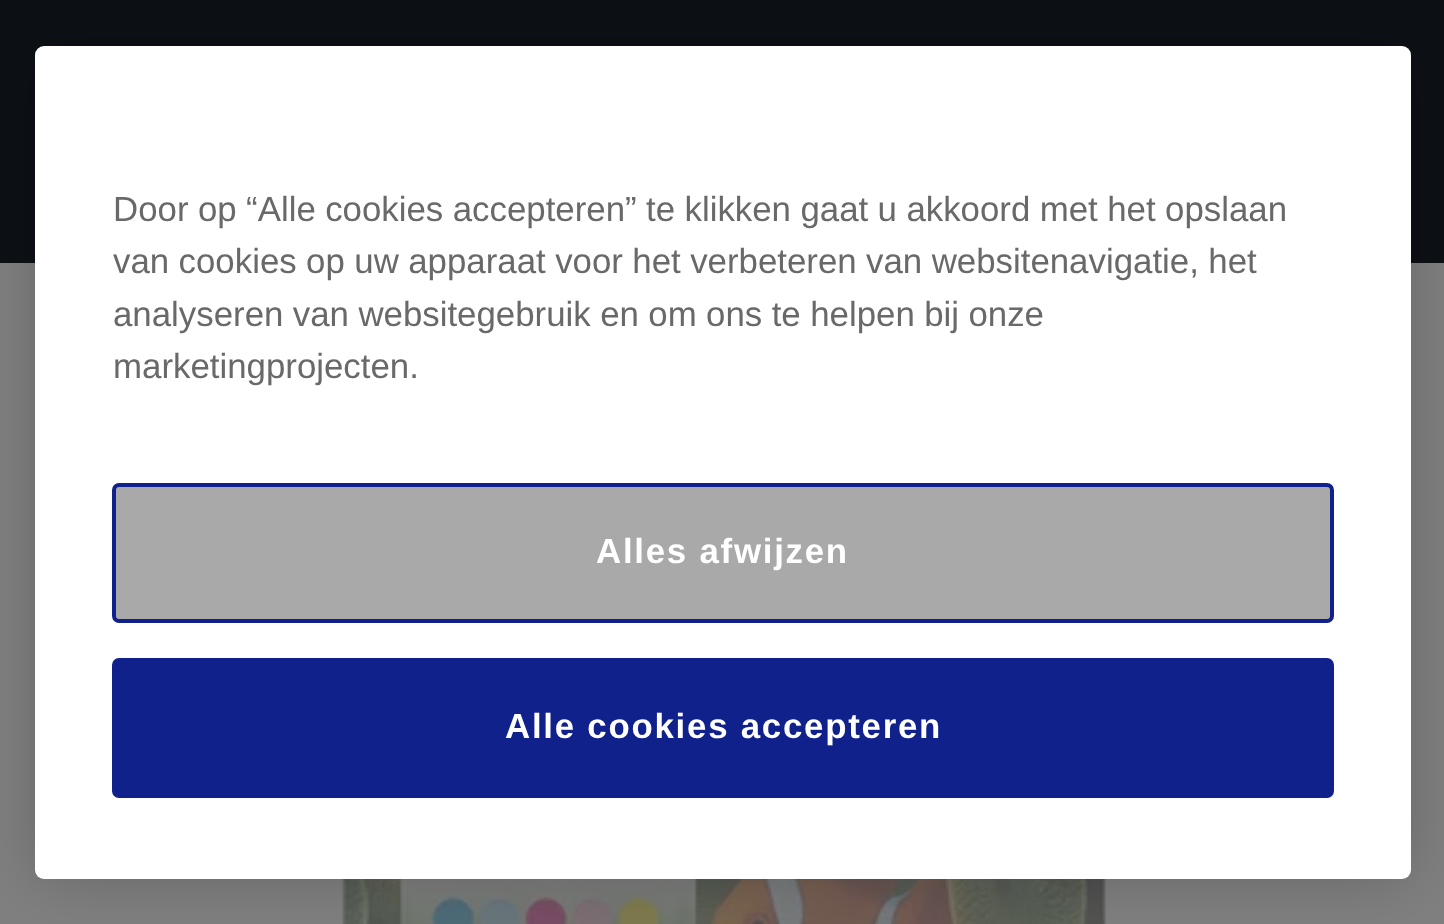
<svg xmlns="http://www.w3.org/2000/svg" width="1444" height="924">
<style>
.a{font:34.85px Liberation Sans;fill:#696969}
.b{font:bold 34.85px Liberation Sans;letter-spacing:1.75px;fill:#fff}
</style>
<rect width="100%" height="100%" fill="#808080"/>
<path fill="#0d1116" d="M0 0h1444v263H0z"/>
<image href="1.png" x="342" y="879" width="764" height="45"/>
<rect fill="#00000033" filter="blur(31.5px)" x="35" y="46" width="1376" height="833" rx="9"/>
<rect fill="#fff" x="35" y="46" width="1376" height="833" rx="9"/>
<rect fill="#a9a9a9" stroke="#10218b" stroke-width="4" x="114" y="485" width="1218" height="136" rx="5"/>
<rect fill="#10218b" stroke="#10218b" stroke-width="4" x="114" y="660" width="1218" height="136" rx="5"/>
<text class="a" x="113" y="221" word-spacing="-0.25">Door op “Alle cookies accepteren” te klikken gaat u akkoord met het opslaan</text>
<text class="a" x="113" y="273" word-spacing="-0.25">van cookies op uw apparaat voor het verbeteren van websitenavigatie, het</text>
<text class="a" x="113" y="326" word-spacing="-0.25">analyseren van websitegebruik en om ons te helpen bij onze</text>
<text class="a" x="113" y="378">marketingprojecten.</text>
<text class="b" x="596" y="563">Alles afwijzen</text>
<text class="b" x="505" y="738">Alle cookies accepteren</text>
</svg>
